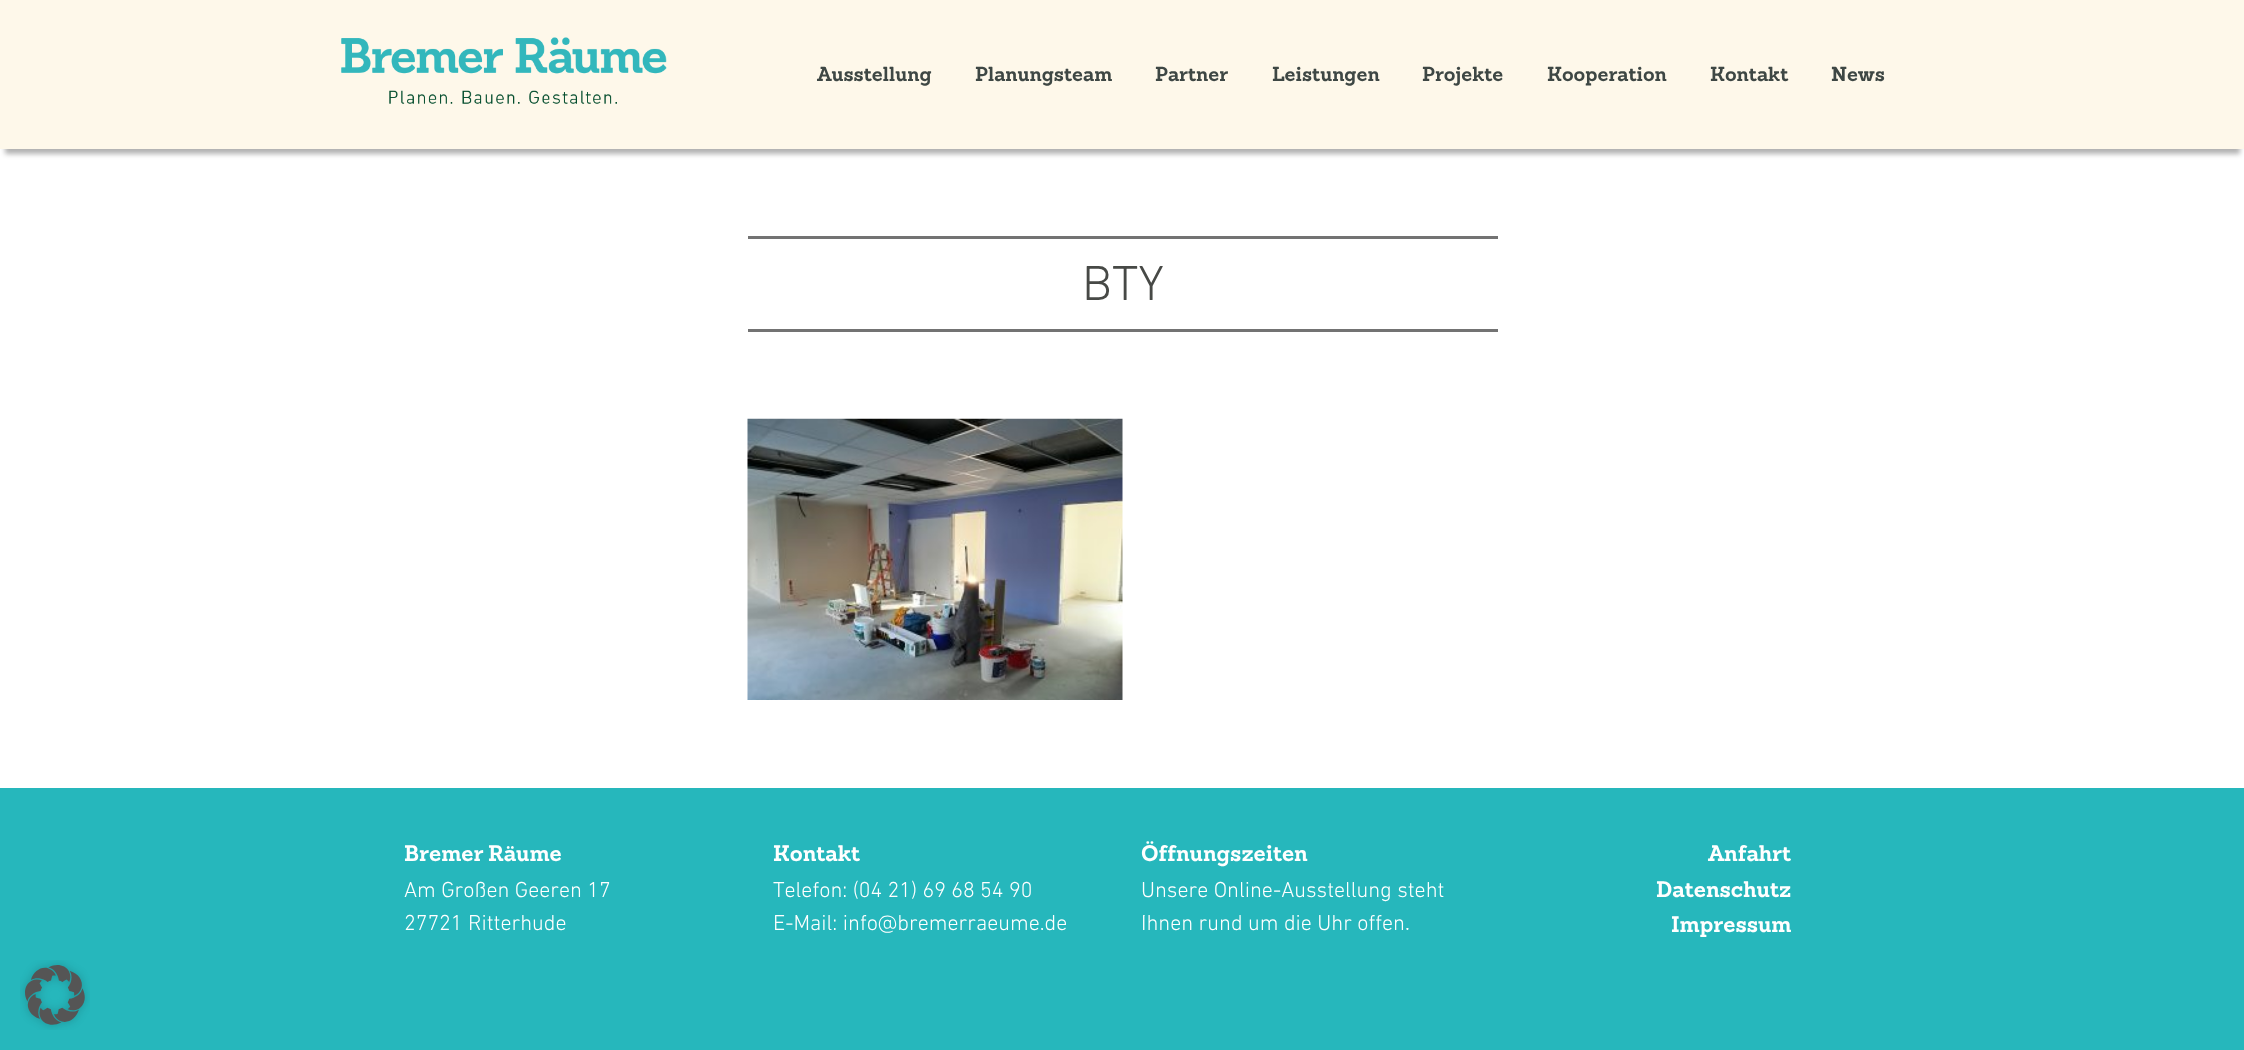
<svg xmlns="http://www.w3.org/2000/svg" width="2244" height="1050">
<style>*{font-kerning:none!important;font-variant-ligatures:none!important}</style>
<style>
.a{font:bold 19.75px Sanchez;fill:#3e4744}
.b{font:300 50px DIN Next;fill:#474946}
.c{font:bold 22px Sanchez;fill:#fff}
.d{font:300 22px DIN Next;fill:#fff}
</style>
<defs>
<clipPath id="clip1"><path d="M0 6h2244v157h-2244zm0-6h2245v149h-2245z" clip-rule="evenodd"/></clipPath>
</defs>
<rect width="100%" height="100%" fill="#fef8ea"/>
<path fill="#fff" d="M0 149h2244v639H0z"/>
<g clip-path="url(#clip1)">
<path fill="#0000004d" filter="blur(2.5px)" d="M5 15h2235v139H5z"/>
</g>
<image href="1.png" x="341" y="37" width="326" height="67"/>
<path fill="#737373" d="M748 236h750v3H748z"/>
<path fill="#737373" d="M748 329h750v3H748z"/>
<image href="2.png" x="747" y="418" width="376" height="282"/>
<path fill="#26b7bc" d="M0 788h2244v262H0z"/>
<image href="3.png" x="20" y="960" width="70" height="70"/>
<text class="a" x="817" y="81">Ausstellung</text>
<text class="a" x="975" y="81">Planungsteam</text>
<text class="a" x="1155" y="81">Partner</text>
<text class="a" x="1272" y="81">Leistungen</text>
<text class="a" x="1422" y="81">Projekte</text>
<text class="a" x="1547" y="81">Kooperation</text>
<text class="a" x="1710" y="81">Kontakt</text>
<text class="a" x="1831" y="81">News</text>
<text class="b" x="1082" y="300">BTY</text>
<text class="c" x="404" y="861" word-spacing="-1">Bremer Räume</text>
<text class="d" x="404" y="897">Am Großen Geeren 17</text>
<text class="d" x="404" y="930">27721 Ritterhude</text>
<text class="c" x="773" y="861">Kontakt</text>
<text class="d" x="773" y="897">Telefon: (04 21) 69 68 54 90</text>
<text class="d" x="773" y="930">E-Mail: info@bremerraeume.de</text>
<text class="c" x="1141" y="861">Öffnungszeiten</text>
<text class="d" x="1141" y="897">Unsere Online-Ausstellung steht</text>
<text class="d" x="1141" y="930">Ihnen rund um die Uhr offen.</text>
<text class="c" x="1708" y="861">Anfahrt</text>
<text class="c" x="1656" y="897">Datenschutz</text>
<text class="c" x="1671" y="932">Impressum</text>
</svg>
